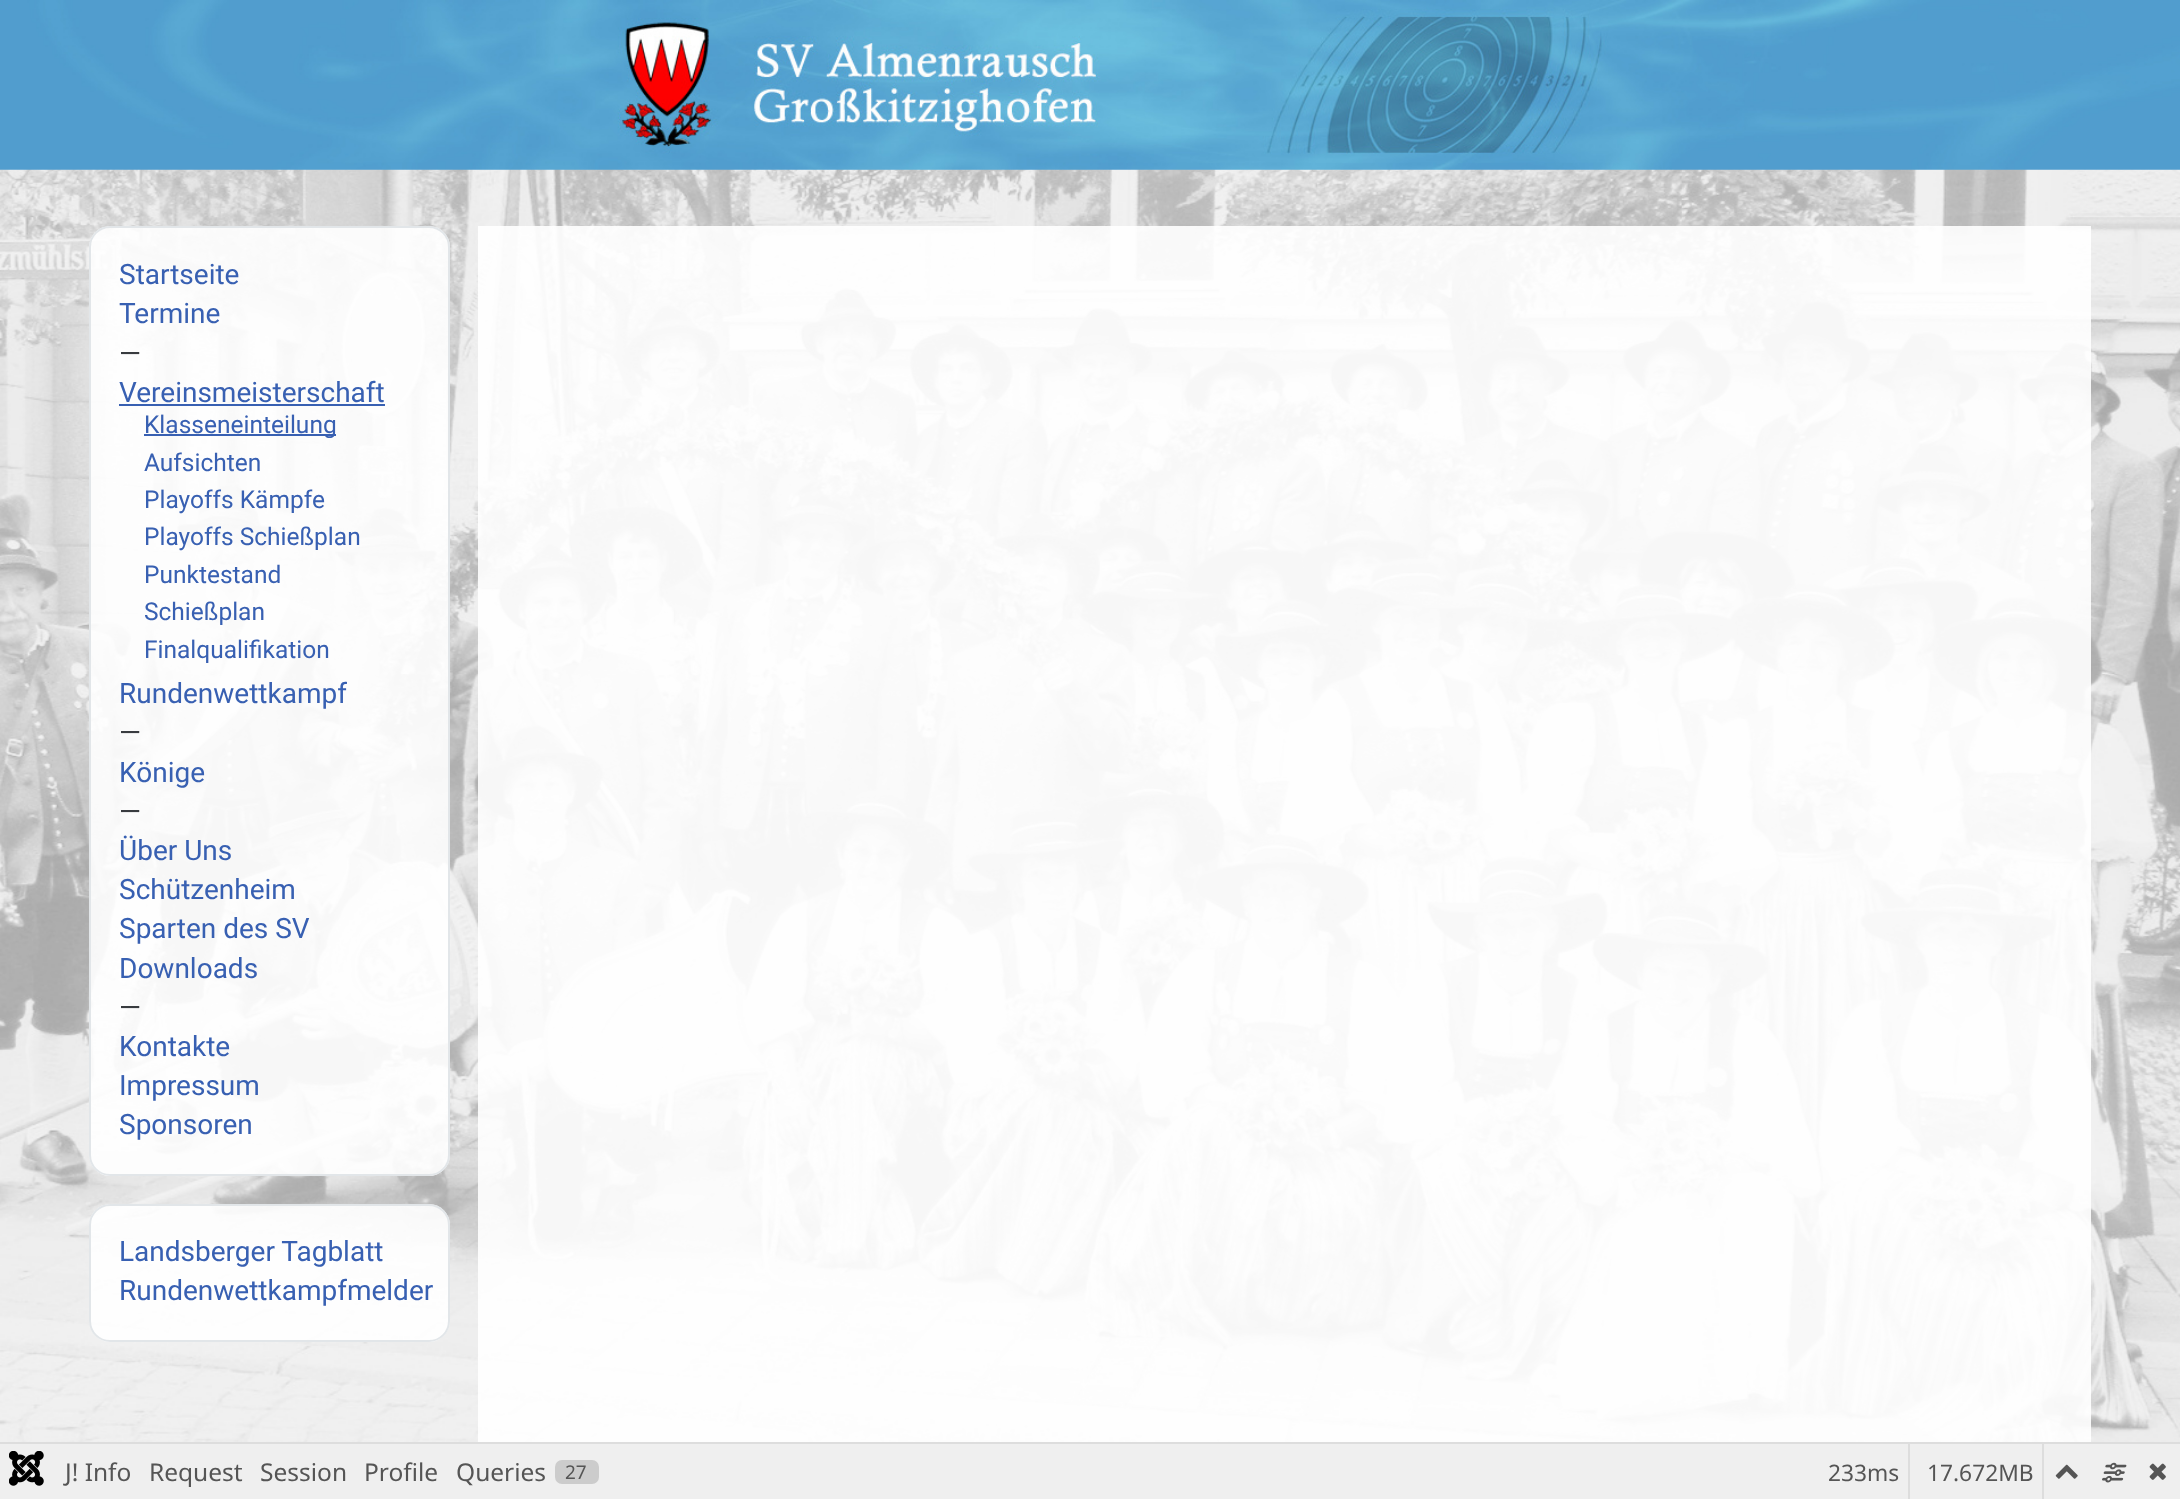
<svg xmlns="http://www.w3.org/2000/svg" width="2180" height="1499">
<style>
.a{font:28px Roboto;fill:#3860b2}
.b{font:28px Roboto;fill:#383b3f}
.c{font:24.5px Roboto;fill:#3860b2}
.d{font:24.5px Noto Sans;fill:#555}
.e{font:19px Noto Sans;fill:#555}
.f{font:22.75px Noto Sans;fill:#555}
</style>
<rect width="100%" height="100%" fill="#fff"/>
<image href="1.png" x="0" y="169" width="2180" height="1273"/>
<image href="2.png" x="0" y="0" width="2180" height="170"/>
<rect fill="#ffffffe6" x="89" y="226" width="361" height="950" rx="21"/>
<rect fill="none" stroke="#dfe3e7e6" stroke-width="2" x="90" y="227" width="359" height="948" rx="20"/>
<path fill="#224faae6" d="M119 404h266v2H119z"/>
<path fill="#224faae6" d="M144 434h192v2H144z"/>
<rect fill="#ffffffe6" x="89" y="1204" width="361" height="138" rx="21"/>
<rect fill="none" stroke="#dfe3e7e6" stroke-width="2" x="90" y="1205" width="359" height="136" rx="20"/>
<path fill="#ffffffe6" d="M478 226h1613v1216H478z"/>
<path fill="#ddd" d="M0 1442h2180v2H0z"/>
<path fill="#efefef" d="M0 1444h2180v55H0z"/>
<image href="3.png" x="9" y="1451" width="35" height="35"/>
<rect fill="#ccc" x="555" y="1460" width="44" height="24" rx="7"/>
<path fill="#ddd" d="M1908 1444h2v55H1908z"/>
<path fill="#ddd" d="M2042 1444h2v55H2042z"/>
<image href="4.png" x="2055" y="1464" width="23" height="15"/>
<image href="5.png" x="2102" y="1462" width="25" height="21"/>
<image href="6.png" x="2149" y="1463" width="17" height="17"/>
<text class="a" x="119" y="284">Startseite</text>
<text class="a" x="119" y="323">Termine</text>
<text class="b" x="119" y="363">—</text>
<text class="a" x="119" y="402">Vereinsmeisterschaft</text>
<text class="c" x="144" y="433">Klasseneinteilung</text>
<text class="c" x="144" y="471">Aufsichten</text>
<text class="c" x="144" y="508">Playoffs Kämpfe</text>
<text class="c" x="144" y="545">Playoffs Schießplan</text>
<text class="c" x="144" y="583">Punktestand</text>
<text class="c" x="144" y="620">Schießplan</text>
<text class="c" x="144" y="658">Finalqualifikation</text>
<text class="a" x="119" y="703">Rundenwettkampf</text>
<text class="b" x="119" y="742">—</text>
<text class="a" x="119" y="782">Könige</text>
<text class="b" x="119" y="821">—</text>
<text class="a" x="119" y="860">Über Uns</text>
<text class="a" x="119" y="899">Schützenheim</text>
<text class="a" x="119" y="938">Sparten des SV</text>
<text class="a" x="119" y="978">Downloads</text>
<text class="b" x="119" y="1017">—</text>
<text class="a" x="119" y="1056">Kontakte</text>
<text class="a" x="119" y="1095">Impressum</text>
<text class="a" x="119" y="1134">Sponsoren</text>
<text class="a" x="119" y="1261">Landsberger Tagblatt</text>
<text class="a" x="119" y="1300">Rundenwettkampfmelder</text>
<text class="d" x="65" y="1481">J! Info</text>
<text class="d" x="149" y="1481">Request</text>
<text class="d" x="260" y="1481">Session</text>
<text class="d" x="364" y="1481">Profile</text>
<text class="d" x="456" y="1481">Queries</text>
<text class="e" x="565" y="1479">27</text>
<text class="f" x="1828" y="1481">233ms</text>
<text class="f" x="1927" y="1481">17.672MB</text>
</svg>
